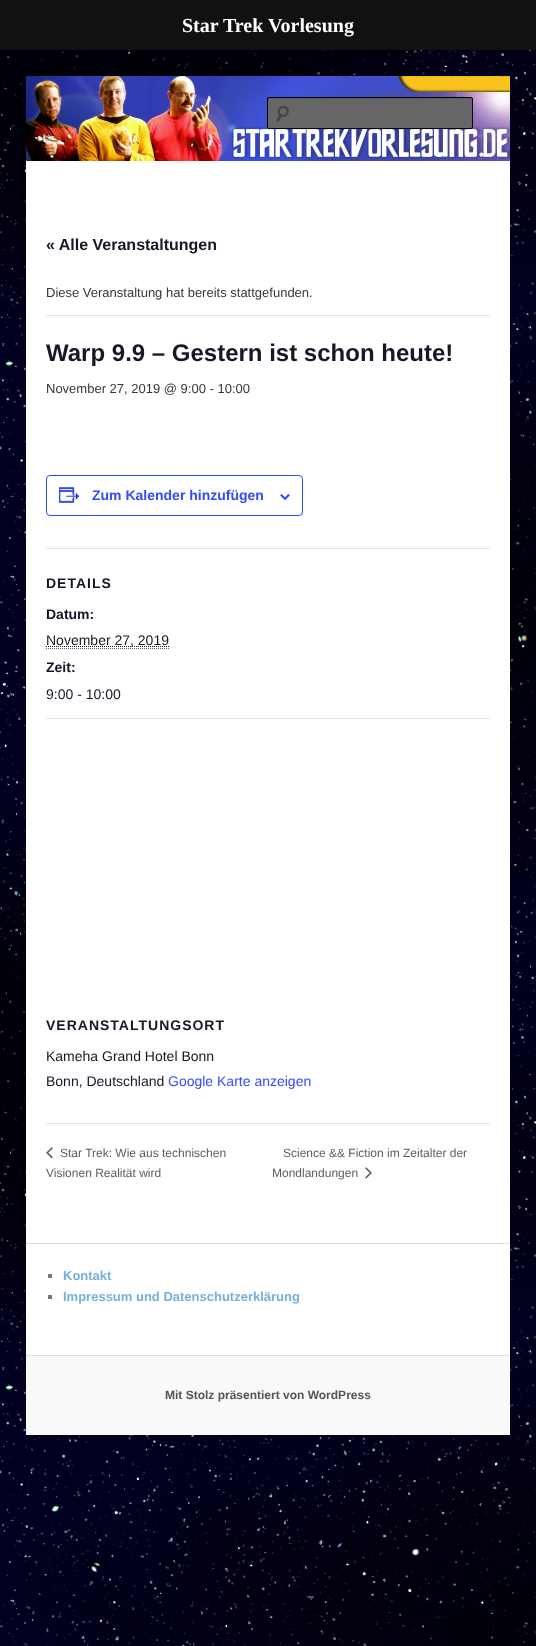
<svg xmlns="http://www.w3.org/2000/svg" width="536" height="1646">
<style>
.a{font:bold 20px Liberation Serif;fill:#fff}
.b{font:bold 16px Liberation Sans;fill:#141827}
.c{font:13px Liberation Sans;fill:#373737}
.d{font:bold 24px Liberation Sans;fill:#141827}
.e{font:bold 14px Liberation Sans;fill:#334aff}
.f{font:bold 14px Liberation Sans;letter-spacing:1px;fill:#141827}
.g{font:bold 14px Liberation Sans;fill:#141827}
.h{font:14px Liberation Sans;fill:#141827}
.i{font:14px Liberation Sans;fill:#334aff}
.j{font:12px Liberation Sans;fill:#5d5d5d}
.k{font:bold 13px Liberation Sans;fill:#75b0dd}
.l{font:bold 12px Liberation Sans;fill:#555}
</style>
<rect width="100%" height="100%" fill="#fff"/>
<image href="1.png" x="0" y="50" width="536" height="1596"/>
<path fill="#111" d="M0 0h536v50H0z"/>
<path fill="#fff" d="M26 161h484v1194H26z"/>
<image href="2.png" x="26" y="76" width="484" height="85"/>
<rect fill="#666" x="267" y="97" width="206" height="32" rx="2"/>
<image href="3.png" x="276" y="105" width="13" height="17"/>
<path fill="#5c5c5c" d="M269 99h203v1v-2h-1h-202c-1 0-1 1-1 2c0-1 0-1 1-1z"/>
<rect fill="none" stroke="#000" x="267.5" y="97.5" width="205" height="31" rx="1.5"/>
<path fill="#e4e4e4" d="M46 315h444v1H46z"/>
<rect fill="none" stroke="#334aff" x="46.5" y="475.5" width="256" height="40" rx="3.5"/>
<image href="4.png" x="59" y="487" width="21" height="16"/>
<image href="5.png" x="280" y="494" width="10" height="6"/>
<path fill="#e4e4e4" d="M46 548h444v1H46z"/>
<path fill="none" stroke="#666" stroke-dasharray="1 1" d="M46 648.5h123"/>
<path fill="none" stroke="#141827" stroke-dasharray="1 1" d="M46 646.5h123"/>
<path fill="#e4e4e4" d="M46 718h444v1H46z"/>
<path fill="#e4e4e4" d="M46 1123h444v1H46z"/>
<image href="6.png" x="46" y="1147" width="7" height="12"/>
<image href="7.png" x="365" y="1167" width="7" height="12"/>
<path fill="#ddd" d="M26 1243h484v1H26z"/>
<path fill="#777" d="M48 1274h4v4H48z"/>
<path fill="#777" d="M48 1295h4v4H48z"/>
<path fill="#f9f9f9" d="M26 1356h484v79H26z"/>
<path fill="#ddd" d="M26 1355h484v1H26z"/>
<text class="a" x="182" y="32">Star Trek Vorlesung</text>
<text class="b" x="46" y="250">« Alle Veranstaltungen</text>
<text class="c" x="46" y="297">Diese Veranstaltung hat bereits stattgefunden.</text>
<text class="d" x="46" y="361">Warp 9.9 – Gestern ist schon heute!</text>
<text class="c" x="46" y="393">November 27, 2019 @ 9:00 - 10:00</text>
<text class="e" x="92" y="500">Zum Kalender hinzufügen</text>
<text class="f" x="46" y="588">DETAILS</text>
<text class="g" x="46" y="619">Datum:</text>
<text class="h" x="46" y="645">November 27, 2019</text>
<text class="g" x="46" y="672">Zeit:</text>
<text class="h" x="46" y="699">9:00 - 10:00</text>
<text class="f" x="46" y="1030">VERANSTALTUNGSORT</text>
<text class="h" x="46" y="1061">Kameha Grand Hotel Bonn</text>
<text class="h" x="46" y="1086">Bonn, Deutschland</text>
<text class="i" x="168" y="1086">Google Karte anzeigen</text>
<text class="j" x="60" y="1157">Star Trek: Wie aus technischen</text>
<text class="j" x="46" y="1177">Visionen Realität wird</text>
<text class="j" x="283" y="1157">Science &amp;&amp; Fiction im Zeitalter der</text>
<text class="j" x="272" y="1177">Mondlandungen</text>
<text class="k" x="63" y="1280">Kontakt</text>
<text class="k" x="63" y="1301">Impressum und Datenschutzerklärung</text>
<text class="l" x="165" y="1399">Mit Stolz präsentiert von WordPress</text>
</svg>
